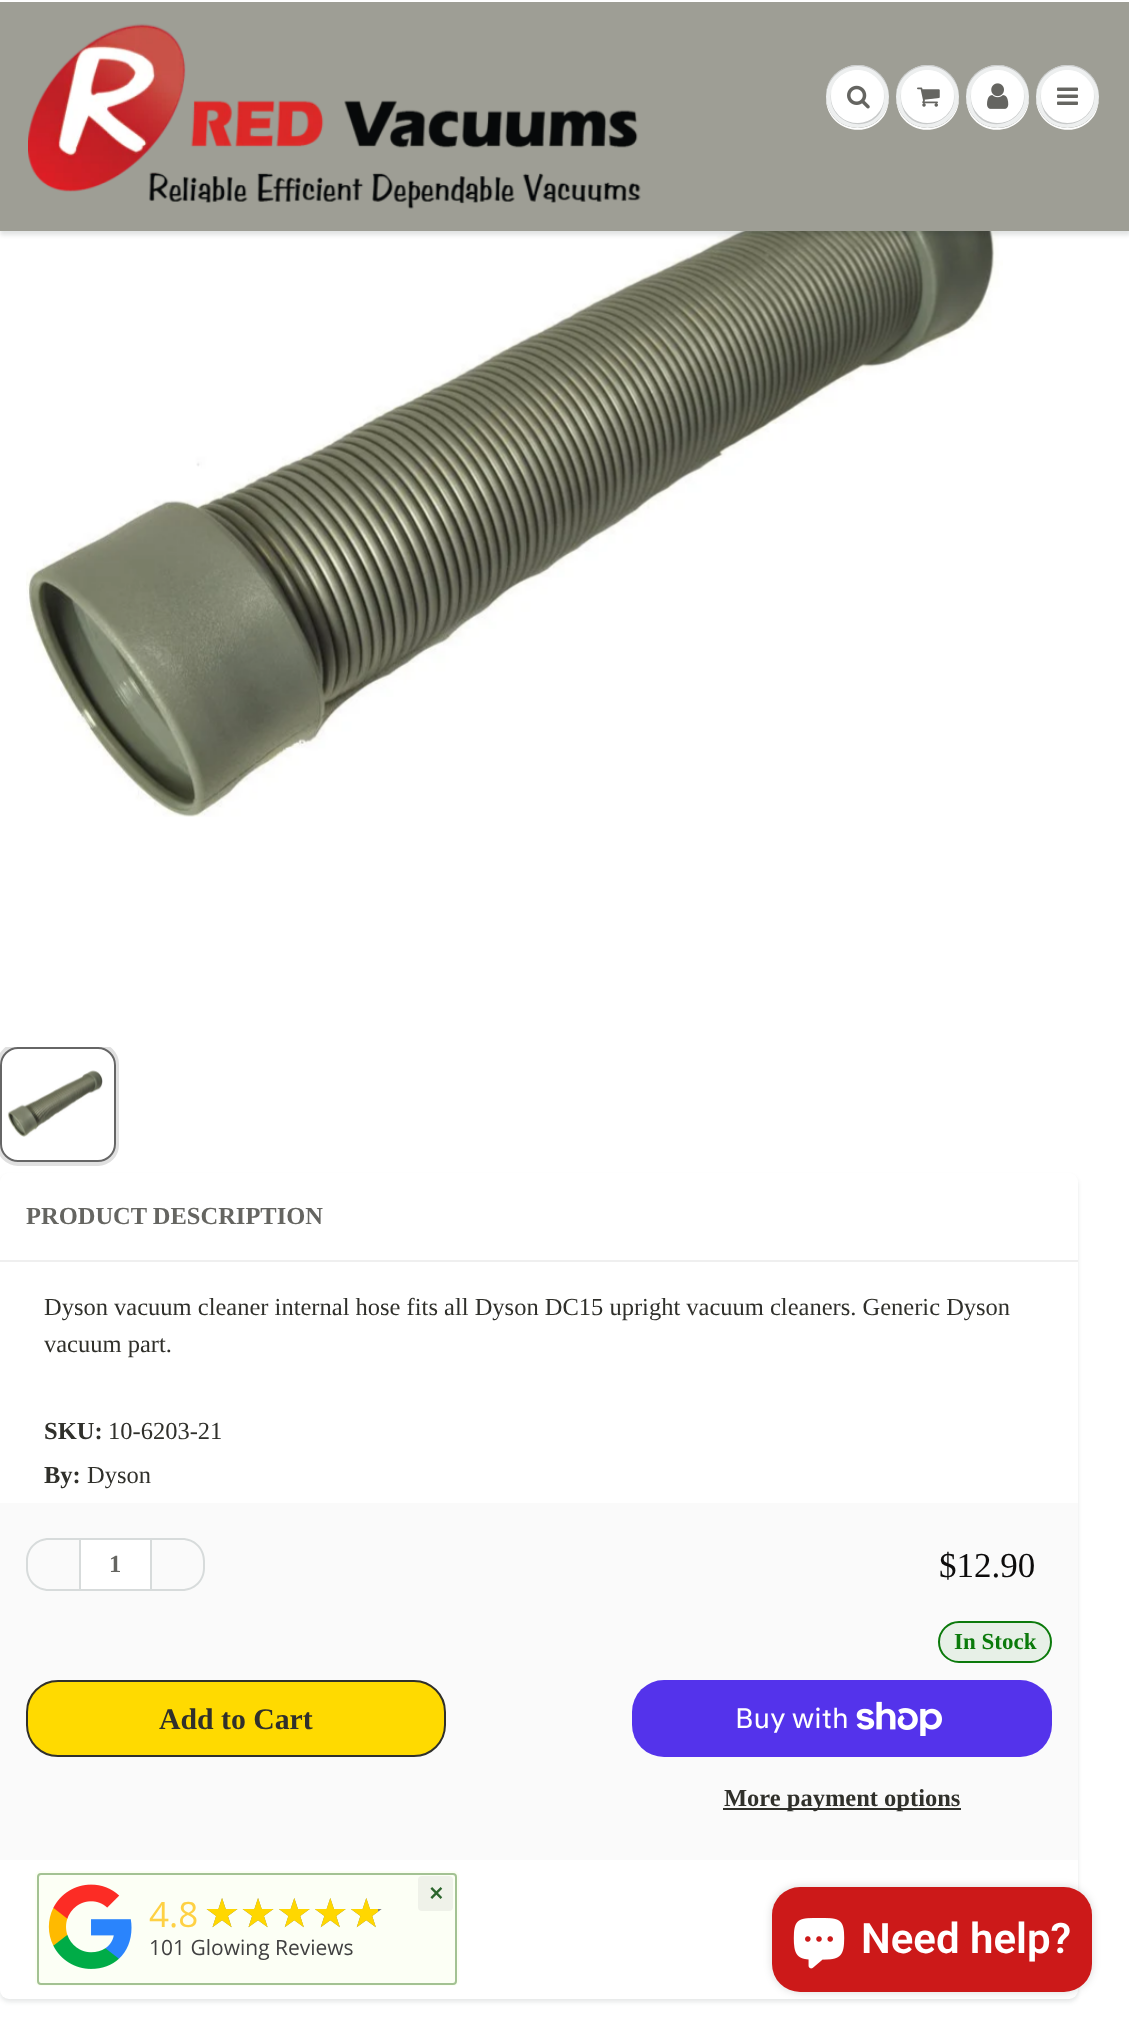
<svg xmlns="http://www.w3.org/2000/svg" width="1129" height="2028">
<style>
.a{font:bold 24.5px Liberation Serif;fill:#656561}
.b{font:24.5px Liberation Serif;fill:#30302b}
.c{font:bold 24.5px Liberation Serif;fill:#30302b}
.d{font:35px Liberation Serif;fill:#0d0c0c}
.e{font:bold 23px Liberation Serif;fill:#0b7a0b}
.f{font:bold 29.75px Liberation Serif;fill:#30302b}
.g{font:28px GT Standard;fill:#fff}
.h{font:bold 24.5px Open Sans;fill:#2c662d}
.i{font:35px Open Sans;fill:#fed144}
.j{font:40.25px DejaVu Sans;fill:#808080}
.k{font:40.25px DejaVu Sans;fill:#ffd700}
.l{font:21px Open Sans;fill:#404040}
.m{font:600 42px Roboto;fill:#fff}
</style>
<defs>
<clipPath id="clip1"><path d="M0 1047h1078v126H0z"/></clipPath>
<clipPath id="clip2"><path d="M205 1894h173v35H205z"/></clipPath>
</defs>
<rect width="100%" height="100%" fill="#fff"/>
<image href="6.png" x="26" y="231" width="977" height="586"/>
<path fill="#0b191c1f" filter="blur(2px)" d="M0 4h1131v231H0z"/>
<path fill="#9e9e95" d="M0 2h1129v229H0z"/>
<path fill="#fff" d="M0 1h1129v1H0z"/>
<image href="1.png" x="28" y="23" width="613" height="186"/>
<path fill="#fff" d="M826 97c-1 32 40 45 58 19c3-5 5-12 5-19c-1 17-14 31-31 31c-18 0-31-14-32-31z"/>
<circle fill="#edefef" cx="857.5" cy="96.5" r="31.5"/>
<path fill="#c9cbcb" d="M858 66c17 0 31 15 31 31c0-6-2-13-5-18c-18-26-59-13-58 18c0-16 14-31 32-31z"/>
<path fill="#c9cbcb" d="M831 93c-4 28 33 43 49 20c3-6 5-13 4-20c2 27-33 41-48 18c-4-5-5-11-5-18z"/>
<circle fill="#fff" cx="857.5" cy="96.5" r="26.5"/>
<path fill="#fff" d="M858 72c14 0 26 12 26 25c0-5-1-11-5-15c-14-22-49-11-48 15c0-13 12-25 27-25z"/>
<image href="2.png" x="847" y="85" width="23" height="24"/>
<path fill="#fff" d="M896 97c0 7 2 14 5 19c18 26 59 13 58-19c-1 17-14 31-31 31c-18 0-31-14-32-31z"/>
<circle fill="#edefef" cx="927.5" cy="96.5" r="31.5"/>
<path fill="#c9cbcb" d="M928 66c17 0 31 15 31 31c0-6-2-13-5-18c-18-26-59-13-58 18c0-16 14-31 32-31z"/>
<path fill="#c9cbcb" d="M901 93c-1 7 1 14 4 20c16 23 53 8 49-20c2 27-33 41-48 18c-4-5-5-11-5-18z"/>
<circle fill="#fff" cx="927.5" cy="96.5" r="26.5"/>
<path fill="#fff" d="M928 72c14 0 26 12 26 25c0-5-1-11-5-15c-14-22-49-11-48 15c0-13 12-25 27-25z"/>
<image href="3.png" x="917" y="87" width="23" height="20"/>
<path fill="#fff" d="M966 97c0 7 2 14 5 19c18 26 59 13 58-19c-1 17-14 31-31 31c-18 0-31-14-32-31z"/>
<circle fill="#edefef" cx="997.5" cy="96.5" r="31.5"/>
<path fill="#c9cbcb" d="M998 66c17 0 31 15 31 31c0-6-2-13-5-18c-18-26-59-13-58 18c0-16 14-31 32-31z"/>
<path fill="#c9cbcb" d="M971 93c-1 7 1 14 4 20c16 23 53 8 49-20c0 7-1 13-5 18c-15 23-50 9-48-18z"/>
<circle fill="#fff" cx="997.5" cy="96.5" r="26.5"/>
<path fill="#fff" d="M998 72c14 0 26 12 26 25c0-5-1-11-5-15c-14-22-49-11-48 15c0-13 12-25 27-25z"/>
<image href="4.png" x="987" y="83" width="22" height="26"/>
<path fill="#fff" d="M1036 97c-1 32 40 45 58 19c3-5 5-12 5-19c-1 17-14 31-31 31c-18 0-31-14-32-31z"/>
<circle fill="#edefef" cx="1067.5" cy="96.5" r="31.5"/>
<path fill="#c9cbcb" d="M1068 66c17 0 31 15 31 31c0-6-2-13-5-18c-18-26-59-13-58 18c0-16 14-31 32-31z"/>
<path fill="#c9cbcb" d="M1041 93c-1 7 1 14 4 20c16 23 53 8 49-20c0 7-1 13-5 18c-15 22-50 9-48-18z"/>
<circle fill="#fff" cx="1067.5" cy="96.5" r="26.5"/>
<path fill="#fff" d="M1068 72c14 0 26 12 26 25c0-5-1-11-5-15c-14-22-49-11-48 15c0-13 12-25 27-25z"/>
<image href="5.png" x="1057" y="87" width="21" height="18"/>
<g clip-path="url(#clip1)">
<rect fill="none" stroke="#e0e0e0" stroke-width="4" x="-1" y="1045" width="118" height="119" rx="19"/>
</g>
<rect fill="#fff" y="1047" width="116" height="115" rx="18"/>
<rect fill="none" stroke="#00000099" stroke-width="2" x="1" y="1048" width="114" height="113" rx="17"/>
<image href="7.png" x="7" y="1070" width="96" height="67"/>
<rect fill="#0b191c1a" filter="blur(2px)" y="1176" width="1078" height="826" rx="9"/>
<rect fill="#fff" y="1173" width="1078" height="826" rx="9"/>
<path fill="#efefef" d="M0 1260h1078v2H0z"/>
<path fill="#fafafa" d="M0 1503h1078v357H0z"/>
<path fill="#d7dbdb" fill-rule="evenodd" d="M49 1538h30v53h-30c-13 0-23-10-23-23v-7c0-13 10-23 23-23zm0 2h30v49h-30c-12 0-21-9-21-21v-7c0-12 9-21 21-21z"/>
<path fill="#fff" stroke="#d7dbdb" stroke-width="2" d="M80 1539h71v51H80z"/>
<path fill="#d7dbdb" fill-rule="evenodd" d="M152 1538h30c13 0 23 10 23 23v7c0 13-10 23-23 23h-30zm0 2h30c12 0 21 9 21 21v7c0 12-9 21-21 21h-30z"/>
<rect fill="#e7f0e7" stroke="#0b7a0b" stroke-width="2" x="939" y="1622" width="112" height="40" rx="20"/>
<rect fill="#ffda00" stroke="#30302b" stroke-width="2" x="27" y="1681" width="418" height="75" rx="31"/>
<rect fill="#5433eb" x="632" y="1680" width="420" height="77" rx="32"/>
<image href="8.png" x="856" y="1701" width="86" height="35"/>
<path fill="#30302b" d="M723 1808h238v2H723z"/>
<rect fill="#fcfff5" x="35" y="1871" width="424" height="115" rx="5"/>
<rect fill="none" stroke="#a3c293" stroke-width="2" x="38" y="1874" width="418" height="110" rx="3"/>
<rect fill="#eff2e9" x="418" y="1876" width="35" height="35" rx="4"/>
<image href="9.png" x="48" y="1884" width="84" height="85"/>
<rect fill="#00000026" filter="blur(4.5px)" x="772" y="1887" width="320" height="105" rx="28"/>
<rect fill="#cc1919" x="772" y="1887" width="320" height="105" rx="28"/>
<image href="10.png" x="793" y="1918" width="52" height="51"/>
<text class="a" x="26" y="1224">PRODUCT DESCRIPTION</text>
<text class="b" x="44" y="1315">Dyson vacuum cleaner internal hose fits all Dyson DC15 upright vacuum cleaners. Generic Dyson</text>
<text class="b" x="44" y="1352">vacuum part.</text>
<text class="c" x="44" y="1439">SKU:</text>
<text class="b" x="108" y="1439">10-6203-21</text>
<text class="c" x="44" y="1483">By:</text>
<text class="b" x="87" y="1483">Dyson</text>
<text class="a" x="109" y="1572">1</text>
<text class="d" x="939" y="1577">$12.90</text>
<text class="e" x="954" y="1649">In Stock</text>
<text class="f" x="159" y="1729">Add to Cart</text>
<text class="g" x="735" y="1728">Buy with</text>
<text class="c" x="724" y="1806">More payment options</text>
<text class="h" x="429" y="1902">×</text>
<text class="i" x="149" y="1927">4.8</text>
<text class="j" x="204" y="1927">★★★★★</text>
<g clip-path="url(#clip2)">
<text class="k" x="204" y="1927">★★★★★</text>
</g>
<text class="l" x="149" y="1955">101 Glowing Reviews</text>
<text class="m" x="861" y="1953">Need help?</text>
</svg>
